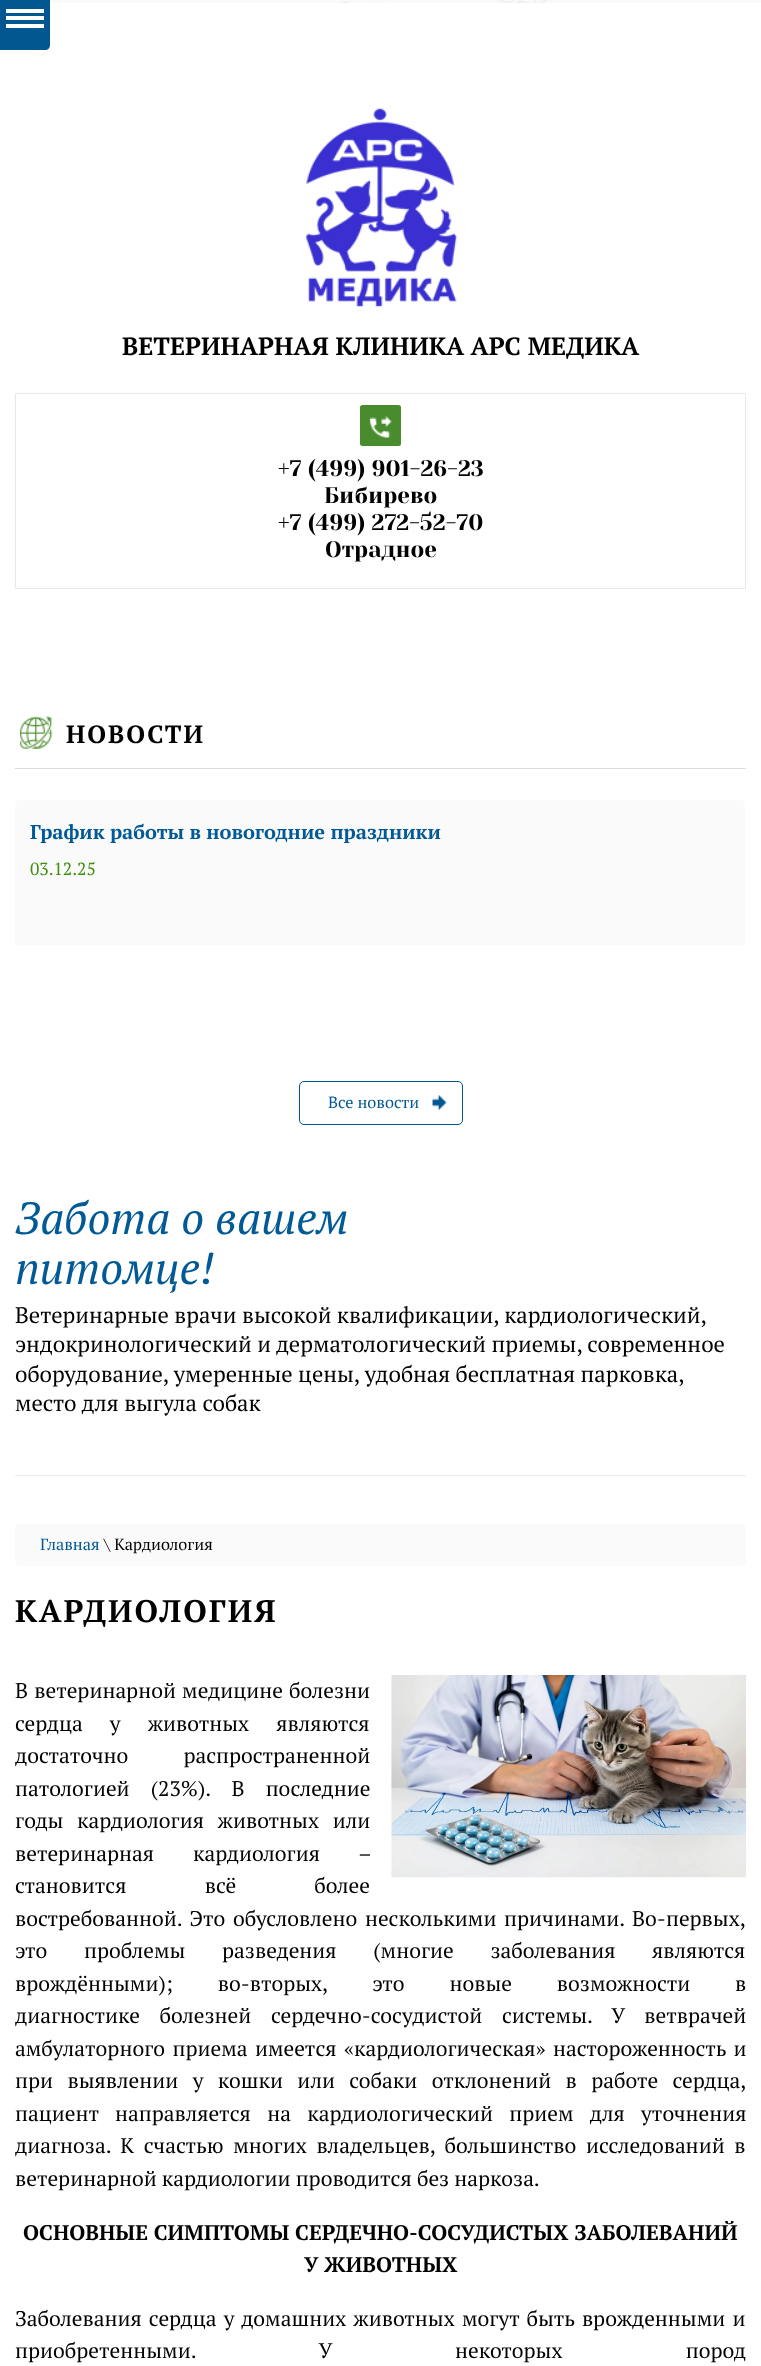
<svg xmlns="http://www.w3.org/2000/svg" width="761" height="2366">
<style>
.a{font:bold 25px PT Serif;fill:#000}
.b{font:22.5px Yeseva One;fill:#000}
.c{font:bold 25px PT Serif;letter-spacing:2px;fill:#000}
.d{font:bold 20px PT Serif;fill:#015a95}
.e{font:17.5px PT Serif;fill:#3d8f0e}
.f{font:16.25px PT Serif;fill:#015a95}
.g{font:italic 45px PT Serif;fill:#015a95}
.h{font:22.5px PT Serif;fill:#000}
.i{font:16.25px PT Serif;fill:#000}
.j{font:bold 31.25px PT Serif;letter-spacing:2px;fill:#000}
.k{font:21.25px PT Serif;fill:#000}
.l{font:bold 21.25px PT Serif;fill:#000}
</style>
<rect width="100%" height="100%" fill="#fff"/>
<image href="1.png" x="50" y="0" width="711" height="3"/>
<path fill="#015891" d="M0 0h50v45c0 3-2 5-5 5h-45z"/>
<path fill="#fff" d="M6 9h38v4H6z"/>
<path fill="#fff" d="M6 16h38v4H6z"/>
<path fill="#fff" d="M6 24h38v4H6z"/>
<image href="2.png" x="306" y="108" width="151" height="199"/>
<path fill="none" stroke="#e8e8e8" d="M15.5 393.5h730v195H15.5z"/>
<rect fill="#498c2d" x="360" y="405" width="41" height="41" rx="2.5"/>
<image href="3.png" x="369" y="416" width="23" height="22"/>
<image href="4.png" x="19" y="716" width="34" height="33"/>
<path fill="#dbdbdb" d="M15 768h731v1H15z"/>
<rect fill="#fafafa" x="15" y="800" width="730" height="145" rx="5"/>
<image href="5.png" x="432" y="1094" width="15" height="17"/>
<rect fill="none" stroke="#00568f" x="299.5" y="1081.5" width="163" height="43" rx="4.5"/>
<path fill="#ececec" d="M15 1475h731v1H15z"/>
<rect fill="#fafafa" x="15" y="1524" width="731" height="42" rx="5"/>
<image href="6.png" x="391" y="1675" width="356" height="203"/>
<text class="a" x="122" y="355">ВЕТЕРИНАРНАЯ КЛИНИКА АРС МЕДИКА</text>
<text class="b" x="278" y="476">+7 (499) 901-26-23</text>
<text class="b" x="324" y="503">Бибирево</text>
<text class="b" x="278" y="530">+7 (499) 272-52-70</text>
<text class="b" x="325" y="557">Отрадное</text>
<text class="c" x="66" y="743">НОВОСТИ</text>
<text class="d" x="30" y="839">График работы в новогодние праздники</text>
<text class="e" x="30" y="875">03.12.25</text>
<text class="f" x="328" y="1108">Все новости</text>
<text class="g" x="15" y="1234">Забота о вашем</text>
<text class="g" x="15" y="1284">питомце!</text>
<text class="h" x="15" y="1323">Ветеринарные врачи высокой квалификации, кардиологический,</text>
<text class="h" x="15" y="1352">эндокринологический и дерматологический приемы, современное</text>
<text class="h" x="15" y="1382">оборудование, умеренные цены, удобная бесплатная парковка,</text>
<text class="h" x="15" y="1411">место для выгула собак</text>
<text class="f" x="40" y="1550">Главная</text>
<text class="i" x="104" y="1550">\ Кардиология</text>
<text class="j" x="15" y="1622">КАРДИОЛОГИЯ</text>
<text class="k" x="15" y="1698" word-spacing="1">В ветеринарной медицине болезни</text>
<text class="k" x="15" y="1731" word-spacing="22">сердца у животных являются</text>
<text class="k" x="15" y="1763" word-spacing="50">достаточно распространенной</text>
<text class="k" x="15" y="1796" word-spacing="16">патологией (23%). В последние</text>
<text class="k" x="15" y="1828" word-spacing="8.5">годы кардиология животных или</text>
<text class="k" x="15" y="1861" word-spacing="34">ветеринарная кардиология –</text>
<text class="k" x="15" y="1893" word-spacing="73">становится всё более</text>
<text class="k" x="15" y="1926" word-spacing="2.5">востребованной. Это обусловлено несколькими причинами. Во-первых,</text>
<text class="k" x="15" y="1958" word-spacing="31.5">это проблемы разведения (многие заболевания являются</text>
<text class="k" x="15" y="1991" word-spacing="39.75">врождёнными); во-вторых, это новые возможности в</text>
<text class="k" x="15" y="2023" word-spacing="14.5">диагностике болезней сердечно-сосудистой системы. У ветврачей</text>
<text class="k" x="15" y="2056" word-spacing="2.25">амбулаторного приема имеется «кардиологическая» настороженность и</text>
<text class="k" x="15" y="2088" word-spacing="9.25">при выявлении у кошки или собаки отклонений в работе сердца,</text>
<text class="k" x="15" y="2121" word-spacing="11.25">пациент направляется на кардиологический прием для уточнения</text>
<text class="k" x="15" y="2153" word-spacing="4.5">диагноза. К счастью многих владельцев, большинство исследований в</text>
<text class="k" x="15" y="2186">ветеринарной кардиологии проводится без наркоза.</text>
<text class="l" x="23" y="2240">ОСНОВНЫЕ СИМПТОМЫ СЕРДЕЧНО-СОСУДИСТЫХ ЗАБОЛЕВАНИЙ</text>
<text class="l" x="304" y="2272">У ЖИВОТНЫХ</text>
<text class="k" x="15" y="2326" word-spacing="2">Заболевания сердца у домашних животных могут быть врожденными и</text>
<text class="k" x="15" y="2358" word-spacing="118">приобретенными. У некоторых пород</text>
</svg>
